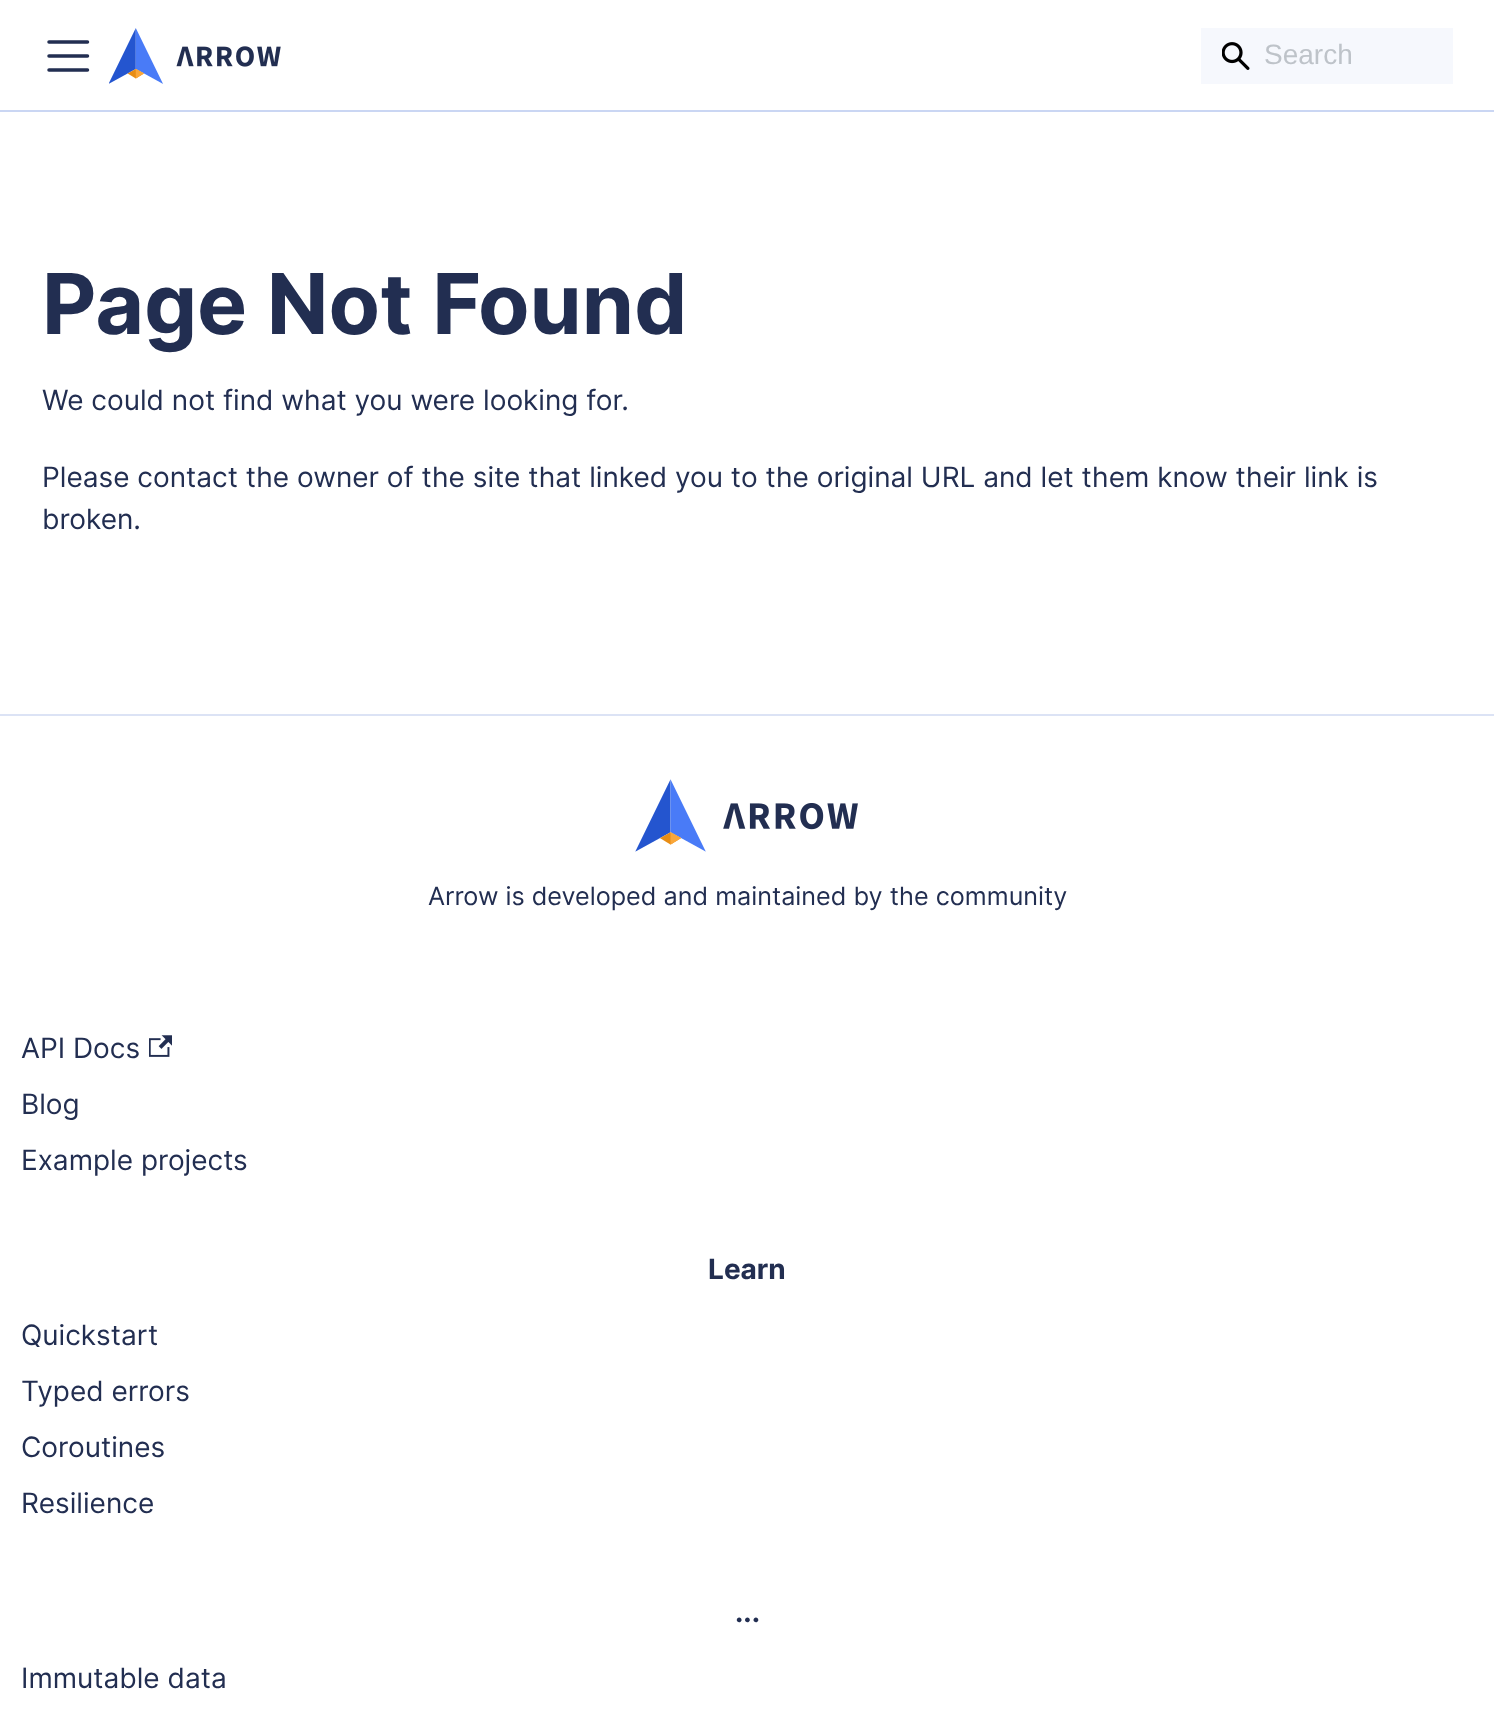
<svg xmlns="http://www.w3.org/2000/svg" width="1494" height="1718">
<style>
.a{font:28px Liberation Sans;fill:#bec3c9}
.b{font:bold 84px Inter;fill:#222e51}
.c{font:28px Inter;fill:#222e51}
.d{font:25.2px Inter;fill:#222e51}
.e{font:bold 28px Inter;fill:#222e51}
</style>
<rect width="100%" height="100%" fill="#fff"/>
<path fill="#cad6f3" d="M0 110h1494v2H0z"/>
<path fill="none" stroke="#222e51" stroke-width="3.5" stroke-linecap="round" d="M49 42h38.5m-38.5 14h38.5m-38.5 14h38.5"/>
<image href="1.png" x="109" y="28" width="172" height="56"/>
<path fill="#f6f8fd" d="M1201 28h252v56H1201z"/>
<image href="2.png" x="1222" y="42" width="28" height="28"/>
<path fill="#dce3f5" d="M0 714h1494v2H0z"/>
<image href="3.png" x="635" y="779" width="223" height="73"/>
<image href="4.png" x="149" y="1035" width="23" height="22"/>
<text class="a" x="1264" y="64">Search</text>
<text class="b" x="42" y="334">Page Not Found</text>
<text class="c" x="42" y="410">We could not find what you were looking for.</text>
<text class="c" x="42" y="487">Please contact the owner of the site that linked you to the original URL and let them know their link is</text>
<text class="c" x="42" y="529">broken.</text>
<text class="d" x="428" y="905">Arrow is developed and maintained by the community</text>
<text class="c" x="21" y="1058">API Docs</text>
<text class="c" x="21" y="1114">Blog</text>
<text class="c" x="21" y="1170">Example projects</text>
<text class="e" x="708" y="1279">Learn</text>
<text class="c" x="21" y="1345">Quickstart</text>
<text class="c" x="21" y="1401">Typed errors</text>
<text class="c" x="21" y="1457">Coroutines</text>
<text class="c" x="21" y="1513">Resilience</text>
<text class="e" x="735" y="1622">...</text>
<text class="c" x="21" y="1688">Immutable data</text>
</svg>
